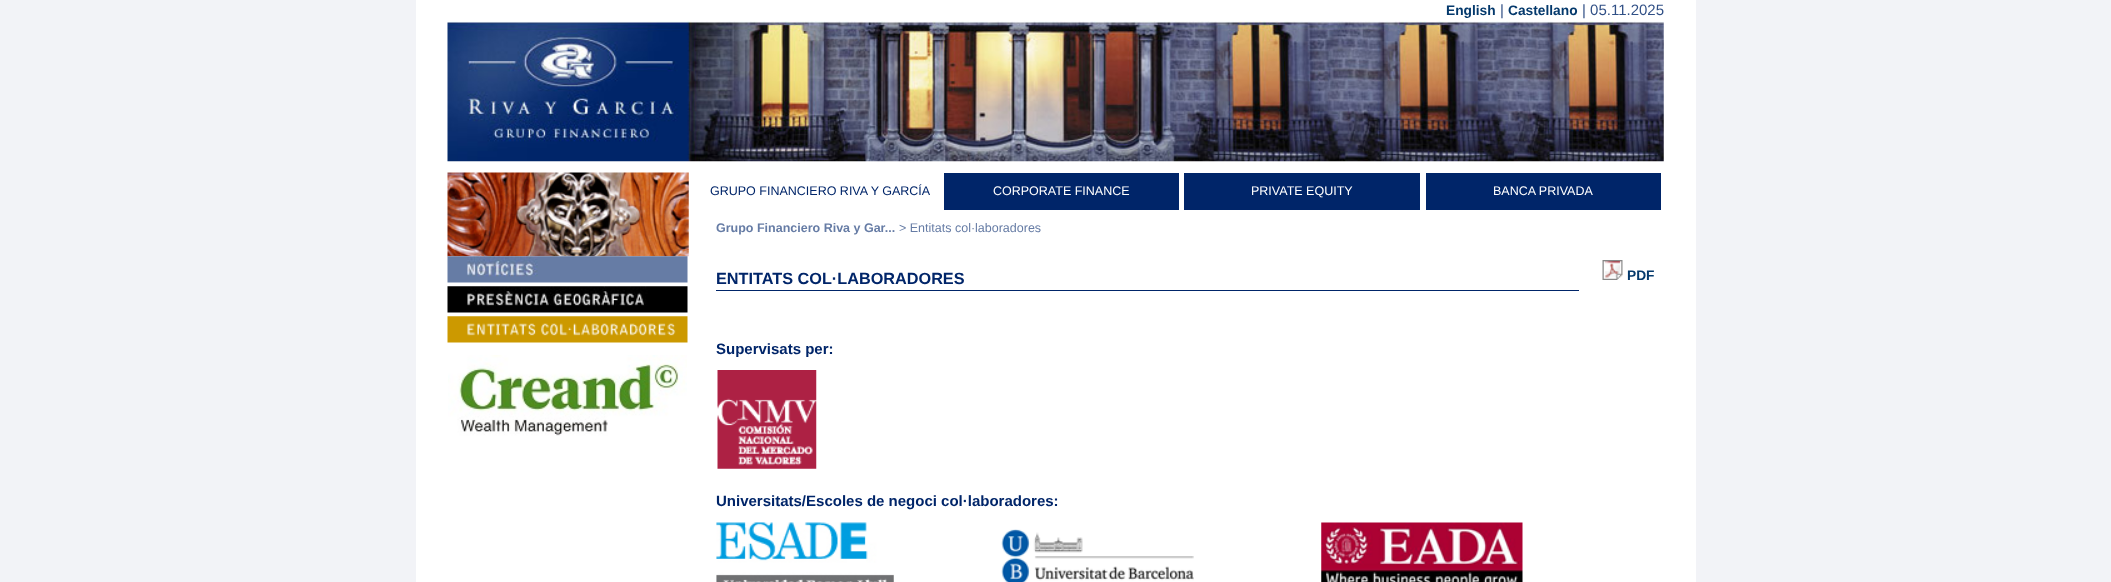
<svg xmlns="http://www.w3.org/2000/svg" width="2111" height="582">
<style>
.a{font:bold 13.75px Liberation Sans;fill:#04396c}
.b{font:15px Liberation Sans;fill:#315086}
.c{font:12.5px Liberation Sans;fill:#002569}
.d{font:12.5px Liberation Sans;fill:#fff}
.e{font:bold 12.5px Liberation Sans;fill:#667ca5}
.f{font:12.5px Liberation Sans;fill:#667ca5}
.g{font:bold 16.25px Liberation Sans;fill:#002569}
.h{font:bold 15px Liberation Sans;fill:#002569}
</style>
<rect width="100%" height="100%" fill="#f2f3f7"/>
<path fill="#fff" d="M416 0h1280v582H416z"/>
<image href="1.png" x="447" y="21" width="1217" height="141"/>
<image href="2.png" x="447" y="172" width="242" height="85"/>
<image href="3.png" x="447" y="256" width="241" height="27"/>
<image href="4.png" x="447" y="286" width="241" height="27"/>
<image href="5.png" x="447" y="316" width="241" height="27"/>
<image href="6.png" x="448" y="355" width="239" height="81"/>
<path fill="#002569" d="M944 173h235v37H944z"/>
<path fill="#002569" d="M1184 173h236v37H1184z"/>
<path fill="#002569" d="M1426 173h235v37H1426z"/>
<path fill="#002569" d="M716 290h863v1H716z"/>
<image href="7.png" x="1602" y="260" width="21" height="20"/>
<image href="8.png" x="717" y="370" width="100" height="99"/>
<image href="9.png" x="716" y="522" width="178" height="60"/>
<image href="10.png" x="1001" y="529" width="193" height="53"/>
<image href="11.png" x="1321" y="522" width="202" height="60"/>
<text class="a" x="1446" y="15">English</text>
<text class="b" x="1500" y="15">|</text>
<text class="a" x="1508" y="15">Castellano</text>
<text class="b" x="1582" y="15">| 05.11.2025</text>
<text class="c" x="710" y="195">GRUPO FINANCIERO RIVA Y GARCÍA</text>
<text class="d" x="993" y="195">CORPORATE FINANCE</text>
<text class="d" x="1251" y="195">PRIVATE EQUITY</text>
<text class="d" x="1493" y="195">BANCA PRIVADA</text>
<text class="e" x="716" y="232">Grupo Financiero Riva y Gar...</text>
<text class="f" x="899" y="232">&gt; Entitats col·laboradores</text>
<text class="g" x="716" y="284">ENTITATS COL·LABORADORES</text>
<text class="a" x="1627" y="280">PDF</text>
<text class="h" x="716" y="354">Supervisats per:</text>
<text class="h" x="716" y="506">Universitats/Escoles de negoci col·laboradores:</text>
</svg>
